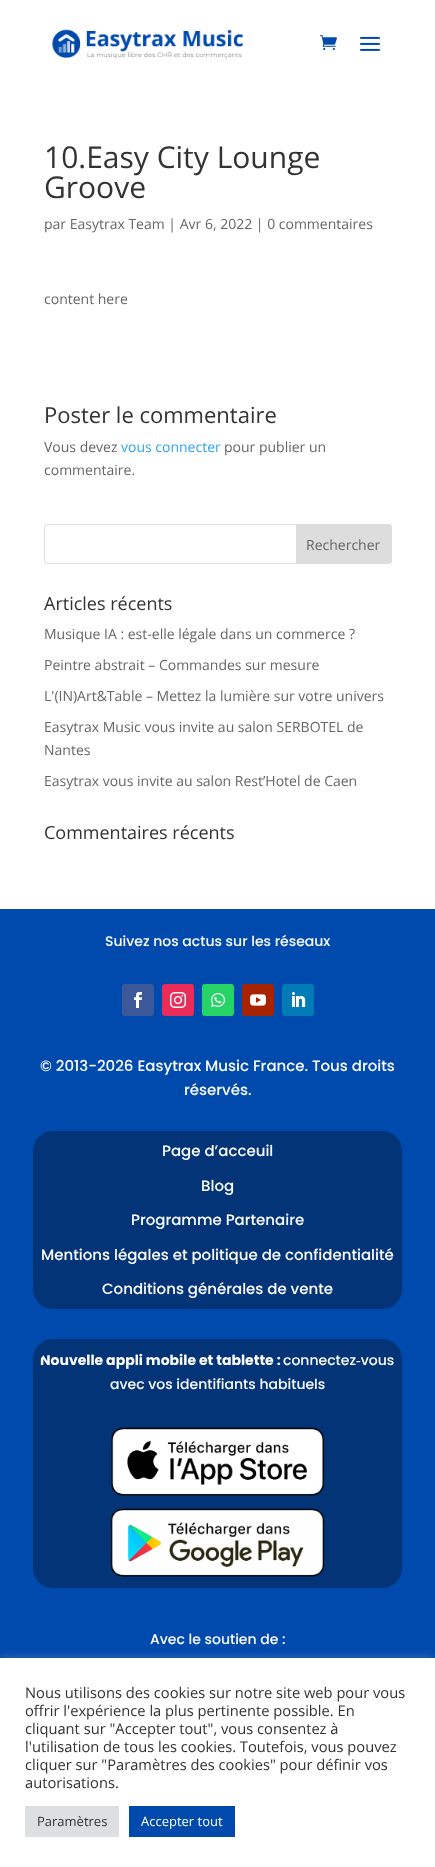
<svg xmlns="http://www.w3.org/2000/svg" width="435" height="1867">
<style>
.a{font:30px Open Sans;fill:#333}
.b{font:14px Open Sans;fill:#666}
.c{font:22px Open Sans;fill:#333}
.d{font:14px Open Sans;fill:#2ea3f2}
.e{font:18px Open Sans;fill:#333}
.f{font:500 14px Poppins;fill:#fff}
.g{font:500 15px Poppins;fill:#fff}
.h{font:bold 14px Poppins;fill:#fff}
.i{font:14.7px Open Sans;fill:#333}
.j{font:13px Open Sans;fill:#333}
.k{font:13px Open Sans;fill:#fff}
</style>
<defs>
<clipPath id="clip1"><rect x="38" y="1349" width="359" height="47" rx="20"/></clipPath>
</defs>
<rect width="100%" height="100%" fill="#fff"/>
<image href="1.png" x="52" y="29" width="191" height="30"/>
<image href="2.png" x="320" y="35" width="17" height="15"/>
<image href="3.png" x="360" y="36" width="20" height="15"/>
<rect fill="none" stroke="#ddd" x="44.5" y="524.5" width="347" height="39" rx="2.5"/>
<path fill="#ddd" stroke="#ddd" d="M296.5 524.5h92.5c1.5 0 2.5 1 2.5 2.5v34c0 1.5-1 2.5-2.5 2.5h-92.5z"/>
<path fill="#004aad" d="M0 909h435v749H0z"/>
<rect fill="#3b5998" x="122" y="984" width="32" height="32" rx="3"/>
<image href="4.png" x="134" y="992" width="8" height="16"/>
<rect fill="#ea2c59" x="162" y="984" width="32" height="32" rx="3"/>
<image href="5.png" x="170" y="992" width="16" height="16"/>
<rect fill="#25d366" x="202" y="984" width="32" height="32" rx="3"/>
<image href="6.png" x="211" y="993" width="14" height="14"/>
<rect fill="#a82400" x="242" y="984" width="32" height="32" rx="3"/>
<image href="7.png" x="250" y="994" width="16" height="12"/>
<rect fill="#007bb6" x="282" y="984" width="32" height="32" rx="3"/>
<image href="8.png" x="292" y="992" width="14" height="15"/>
<rect fill="#023477" x="33" y="1131" width="369" height="178" rx="20"/>
<rect fill="#023477" x="33" y="1339" width="369" height="249" rx="20"/>
<image href="9.png" x="111" y="1427" width="214" height="69"/>
<image href="10.png" x="110" y="1508" width="215" height="69"/>
<path fill="#acabab4d" filter="blur(5px)" d="M0 1657h435v209H0z"/>
<path fill="#fff" d="M0 1658h435v209H0z"/>
<path fill="#dedfe0" d="M25 1806h94v31H25z"/>
<path fill="#004aad" d="M129 1806h106v31H129z"/>
<text class="a" x="44" y="168">10.Easy City Lounge</text>
<text class="a" x="44" y="198">Groove</text>
<text class="b" x="44" y="229">par Easytrax Team | Avr 6, 2022 | 0 commentaires</text>
<text class="b" x="44" y="304">content here</text>
<text class="c" x="44" y="423">Poster le commentaire</text>
<text class="b" x="44" y="452">Vous devez</text>
<text class="d" x="121" y="452">vous connecter</text>
<text class="b" x="224" y="452">pour publier un</text>
<text class="b" x="44" y="475">commentaire.</text>
<text class="b" x="306" y="550">Rechercher</text>
<text class="e" x="44" y="610">Articles récents</text>
<text class="b" x="44" y="639">Musique IA : est-elle légale dans un commerce ?</text>
<text class="b" x="44" y="670">Peintre abstrait – Commandes sur mesure</text>
<text class="b" x="44" y="701">L'(IN)Art&amp;Table – Mettez la lumière sur votre univers</text>
<text class="b" x="44" y="732">Easytrax Music vous invite au salon SERBOTEL de</text>
<text class="b" x="44" y="755">Nantes</text>
<text class="b" x="44" y="786">Easytrax vous invite au salon Rest’Hotel de Caen</text>
<text class="e" x="44" y="839">Commentaires récents</text>
<text class="f" x="105" y="946">Suivez nos actus sur les réseaux</text>
<text class="g" x="40" y="1071">© 2013-2026 Easytrax Music France. Tous droits</text>
<text class="g" x="184" y="1095">réservés.</text>
<text class="g" x="162" y="1156">Page d’acceuil</text>
<text class="g" x="201" y="1191">Blog</text>
<text class="g" x="131" y="1225">Programme Partenaire</text>
<text class="g" x="41" y="1260">Mentions légales et politique de confidentialité</text>
<text class="g" x="102" y="1294">Conditions générales de vente</text>
<g clip-path="url(#clip1)">
<text class="h" x="40" y="1365">Nouvelle appli mobile et tablette :</text>
<text class="f" x="283" y="1365">connectez‑vous</text>
</g>
<text class="f" x="110" y="1389">avec vos identifiants habituels</text>
<text class="f" x="150" y="1644">Avec le soutien de :</text>
<text class="i" x="25" y="1698">Nous utilisons des cookies sur notre site web pour vous</text>
<text class="i" x="25" y="1716">offrir l'expérience la plus pertinente possible. En</text>
<text class="i" x="25" y="1734">cliquant sur "Accepter tout", vous consentez à</text>
<text class="i" x="25" y="1752">l'utilisation de tous les cookies. Toutefois, vous pouvez</text>
<text class="i" x="25" y="1770">cliquer sur "Paramètres des cookies" pour définir vos</text>
<text class="i" x="25" y="1788">autorisations.</text>
<text class="j" x="37" y="1826">Paramètres</text>
<text class="k" x="141" y="1826">Accepter tout</text>
</svg>
